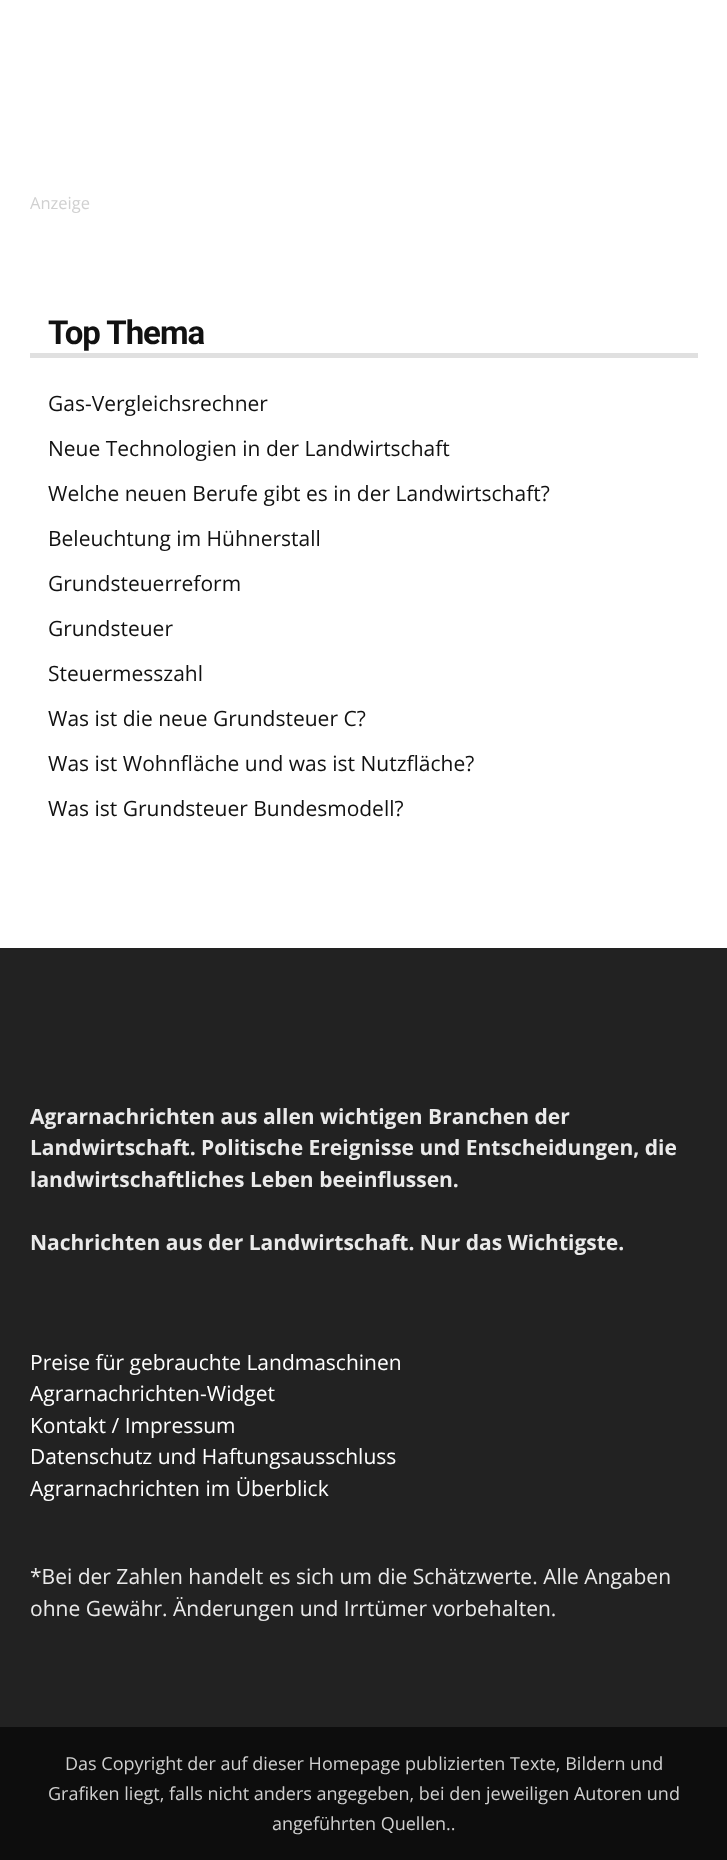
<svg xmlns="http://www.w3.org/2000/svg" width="727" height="1860">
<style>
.a{font:16.5px Open Sans;fill:#d0d0d0}
.b{font:bold 33px Roboto;letter-spacing:-1px;fill:#111}
.c{font:21px Open Sans;fill:#111}
.d{font:bold 21px Open Sans;fill:#eaeaea}
.e{font:21px Open Sans;fill:#fff}
.f{font:21px Open Sans;fill:#eaeaea}
.g{font:18px Open Sans;fill:#d0d0d0}
</style>
<rect width="100%" height="100%" fill="#fff"/>
<path fill="#e0e0e0" d="M30 353h668v5H30z"/>
<path fill="#222" d="M0 948h727v779H0z"/>
<path fill="#0d0d0d" d="M0 1727h727v133H0z"/>
<text class="a" x="30" y="209">Anzeige</text>
<text class="b" x="48" y="344">Top Thema</text>
<text class="c" x="48" y="411">Gas-Vergleichsrechner</text>
<text class="c" x="48" y="456">Neue Technologien in der Landwirtschaft</text>
<text class="c" x="48" y="501">Welche neuen Berufe gibt es in der Landwirtschaft?</text>
<text class="c" x="48" y="546">Beleuchtung im Hühnerstall</text>
<text class="c" x="48" y="591">Grundsteuerreform</text>
<text class="c" x="48" y="636">Grundsteuer</text>
<text class="c" x="48" y="681">Steuermesszahl</text>
<text class="c" x="48" y="726">Was ist die neue Grundsteuer C?</text>
<text class="c" x="48" y="771">Was ist Wohnfläche und was ist Nutzfläche?</text>
<text class="c" x="48" y="816">Was ist Grundsteuer Bundesmodell?</text>
<text class="d" x="30" y="1124">Agrarnachrichten aus allen wichtigen Branchen der</text>
<text class="d" x="30" y="1155">Landwirtschaft. Politische Ereignisse und Entscheidungen, die</text>
<text class="d" x="30" y="1187">landwirtschaftliches Leben beeinflussen.</text>
<text class="d" x="30" y="1250">Nachrichten aus der Landwirtschaft. Nur das Wichtigste.</text>
<text class="e" x="30" y="1370">Preise für gebrauchte Landmaschinen</text>
<text class="e" x="30" y="1401">Agrarnachrichten-Widget</text>
<text class="e" x="30" y="1433">Kontakt / Impressum</text>
<text class="e" x="30" y="1464">Datenschutz und Haftungsausschluss</text>
<text class="e" x="30" y="1496">Agrarnachrichten im Überblick</text>
<text class="f" x="30" y="1584">*Bei der Zahlen handelt es sich um die Schätzwerte. Alle Angaben</text>
<text class="f" x="30" y="1616">ohne Gewähr. Änderungen und Irrtümer vorbehalten.</text>
<text class="g" x="65" y="1770">Das Copyright der auf dieser Homepage publizierten Texte, Bildern und</text>
<text class="g" x="48" y="1800">Grafiken liegt, falls nicht anders angegeben, bei den jeweiligen Autoren und</text>
<text class="g" x="272" y="1830">angeführten Quellen..</text>
</svg>
